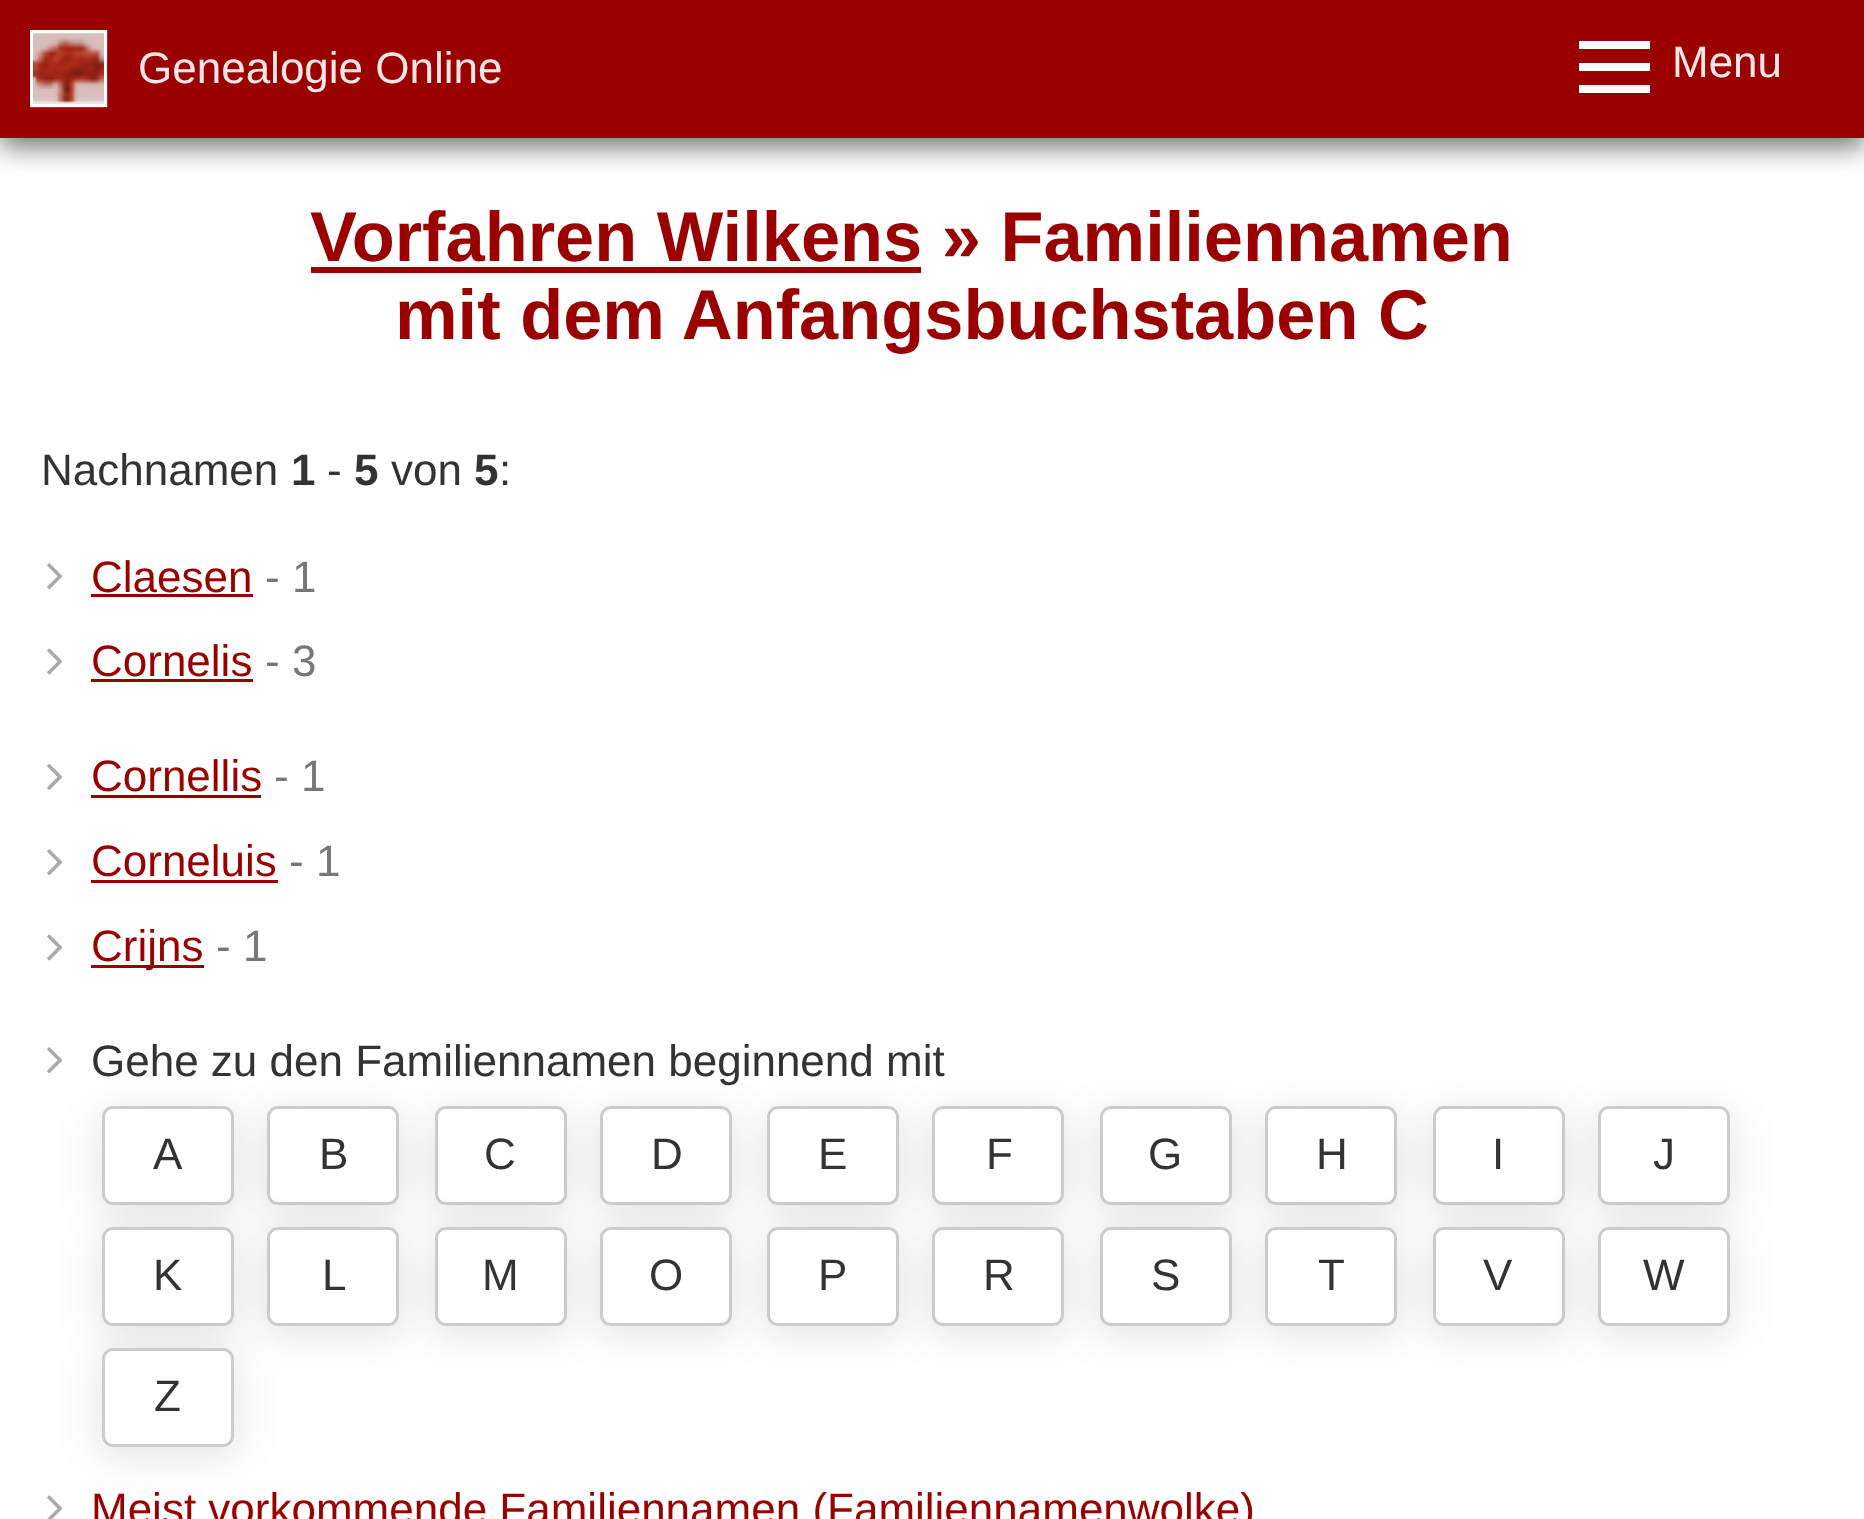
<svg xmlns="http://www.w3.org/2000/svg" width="1864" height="1519">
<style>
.a{font:44px Liberation Sans;fill:#ffe6e6}
.b{font:bold 70.4px Liberation Sans;fill:#9a0000}
.c{font:44px Liberation Sans;fill:#333}
.d{font:bold 44px Liberation Sans;fill:#333}
.e{font:44px Liberation Sans;fill:#9a0000}
.f{font:44px Liberation Sans;fill:#777}
</style>
<rect width="100%" height="100%" fill="#fff"/>
<path fill="#323232ba" filter="blur(14px)" d="M0 8h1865v138H0z"/>
<path fill="#9a0000" d="M0 0h1864v138H0z"/>
<image href="1.png" x="30" y="30" width="78" height="78"/>
<path fill="none" stroke="#fff" stroke-width="3" d="M31.5 31.5h74v74H31.5z"/>
<path fill="#fff" d="M1579 85h71v8H1579z"/>
<path fill="#fff" d="M1579 41h71v8H1579z"/>
<path fill="#fff" d="M1579 63h71v8H1579z"/>
<path fill="#9a0000" d="M311 267h610v6H311z"/>
<image href="2.png" x="47" y="563" width="16" height="27"/>
<path fill="#9a0000" d="M91 594h162v3H91z"/>
<image href="3.png" x="47" y="648" width="16" height="27"/>
<path fill="#9a0000" d="M91 679h162v3H91z"/>
<image href="4.png" x="47" y="764" width="16" height="26"/>
<path fill="#9a0000" d="M91 795h170v3H91z"/>
<image href="2.png" x="47" y="849" width="16" height="27"/>
<path fill="#9a0000" d="M91 880h187v3H91z"/>
<image href="3.png" x="47" y="934" width="16" height="27"/>
<path fill="#9a0000" d="M91 965h113v3H91z"/>
<image href="2.png" x="47" y="1047" width="16" height="27"/>
<rect fill="#0000001a" filter="blur(20.5px)" x="99" y="1111" width="138" height="105" rx="14"/>
<rect fill="#fff" stroke="#ccc" stroke-width="3" x="103.5" y="1107.5" width="129" height="96" rx="9.5"/>
<rect fill="#0000001a" filter="blur(20.5px)" x="264" y="1111" width="138" height="105" rx="14"/>
<rect fill="#fff" stroke="#ccc" stroke-width="3" x="268.5" y="1107.5" width="129" height="96" rx="9.5"/>
<rect fill="#0000001a" filter="blur(20.5px)" x="432" y="1111" width="137" height="105" rx="14"/>
<rect fill="#fff" stroke="#ccc" stroke-width="3" x="436.5" y="1107.5" width="129" height="96" rx="9.5"/>
<rect fill="#0000001a" filter="blur(20.5px)" x="597" y="1111" width="137" height="105" rx="14"/>
<rect fill="#fff" stroke="#ccc" stroke-width="3" x="601.5" y="1107.5" width="129" height="96" rx="9.5"/>
<rect fill="#0000001a" filter="blur(20.5px)" x="765" y="1111" width="137" height="105" rx="14"/>
<rect fill="#fff" stroke="#ccc" stroke-width="3" x="768.5" y="1107.5" width="129" height="96" rx="9.5"/>
<rect fill="#0000001a" filter="blur(20.5px)" x="930" y="1111" width="137" height="105" rx="14"/>
<rect fill="#fff" stroke="#ccc" stroke-width="3" x="933.5" y="1107.5" width="129" height="96" rx="9.5"/>
<rect fill="#0000001a" filter="blur(20.5px)" x="1097" y="1111" width="138" height="105" rx="14"/>
<rect fill="#fff" stroke="#ccc" stroke-width="3" x="1101.5" y="1107.5" width="129" height="96" rx="9.5"/>
<rect fill="#0000001a" filter="blur(20.5px)" x="1262" y="1111" width="138" height="105" rx="14"/>
<rect fill="#fff" stroke="#ccc" stroke-width="3" x="1266.5" y="1107.5" width="129" height="96" rx="9.5"/>
<rect fill="#0000001a" filter="blur(20.5px)" x="1430" y="1111" width="138" height="105" rx="14"/>
<rect fill="#fff" stroke="#ccc" stroke-width="3" x="1434.5" y="1107.5" width="129" height="96" rx="9.5"/>
<rect fill="#0000001a" filter="blur(20.5px)" x="1595" y="1111" width="138" height="105" rx="14"/>
<rect fill="#fff" stroke="#ccc" stroke-width="3" x="1599.5" y="1107.5" width="129" height="96" rx="9.5"/>
<rect fill="#0000001a" filter="blur(20.5px)" x="99" y="1232" width="138" height="105" rx="14"/>
<rect fill="#fff" stroke="#ccc" stroke-width="3" x="103.5" y="1228.5" width="129" height="96" rx="9.5"/>
<rect fill="#0000001a" filter="blur(20.5px)" x="264" y="1232" width="138" height="105" rx="14"/>
<rect fill="#fff" stroke="#ccc" stroke-width="3" x="268.5" y="1228.5" width="129" height="96" rx="9.5"/>
<rect fill="#0000001a" filter="blur(20.5px)" x="432" y="1232" width="137" height="105" rx="14"/>
<rect fill="#fff" stroke="#ccc" stroke-width="3" x="436.5" y="1228.5" width="129" height="96" rx="9.5"/>
<rect fill="#0000001a" filter="blur(20.5px)" x="597" y="1232" width="137" height="105" rx="14"/>
<rect fill="#fff" stroke="#ccc" stroke-width="3" x="601.5" y="1228.5" width="129" height="96" rx="9.5"/>
<rect fill="#0000001a" filter="blur(20.5px)" x="765" y="1232" width="137" height="105" rx="14"/>
<rect fill="#fff" stroke="#ccc" stroke-width="3" x="768.5" y="1228.5" width="129" height="96" rx="9.5"/>
<rect fill="#0000001a" filter="blur(20.5px)" x="930" y="1232" width="137" height="105" rx="14"/>
<rect fill="#fff" stroke="#ccc" stroke-width="3" x="933.5" y="1228.5" width="129" height="96" rx="9.5"/>
<rect fill="#0000001a" filter="blur(20.5px)" x="1097" y="1232" width="138" height="105" rx="14"/>
<rect fill="#fff" stroke="#ccc" stroke-width="3" x="1101.5" y="1228.5" width="129" height="96" rx="9.5"/>
<rect fill="#0000001a" filter="blur(20.5px)" x="1262" y="1232" width="138" height="105" rx="14"/>
<rect fill="#fff" stroke="#ccc" stroke-width="3" x="1266.5" y="1228.5" width="129" height="96" rx="9.5"/>
<rect fill="#0000001a" filter="blur(20.5px)" x="1430" y="1232" width="138" height="105" rx="14"/>
<rect fill="#fff" stroke="#ccc" stroke-width="3" x="1434.5" y="1228.5" width="129" height="96" rx="9.5"/>
<rect fill="#0000001a" filter="blur(20.5px)" x="1595" y="1232" width="138" height="105" rx="14"/>
<rect fill="#fff" stroke="#ccc" stroke-width="3" x="1599.5" y="1228.5" width="129" height="96" rx="9.5"/>
<rect fill="#0000001a" filter="blur(20.5px)" x="99" y="1353" width="138" height="105" rx="14"/>
<rect fill="#fff" stroke="#ccc" stroke-width="3" x="103.5" y="1349.5" width="129" height="96" rx="9.5"/>
<image href="5.png" x="47" y="1495" width="16" height="24"/>
<text class="a" x="138" y="83">Genealogie Online</text>
<text class="a" x="1672" y="77">Menu</text>
<text class="b" x="310" y="261">Vorfahren Wilkens » Familiennamen</text>
<text class="b" x="395" y="339">mit dem Anfangsbuchstaben C</text>
<text class="c" x="41" y="485">Nachnamen</text>
<text class="d" x="291" y="485">1</text>
<text class="c" x="327" y="485">-</text>
<text class="d" x="354" y="485">5</text>
<text class="c" x="391" y="485">von</text>
<text class="d" x="474" y="485">5</text>
<text class="c" x="499" y="485">:</text>
<text class="e" x="91" y="592">Claesen</text>
<text class="f" x="265" y="592">- 1</text>
<text class="e" x="91" y="676">Cornelis</text>
<text class="f" x="265" y="676">- 3</text>
<text class="e" x="91" y="791">Cornellis</text>
<text class="f" x="274" y="791">- 1</text>
<text class="e" x="91" y="876">Corneluis</text>
<text class="f" x="289" y="876">- 1</text>
<text class="e" x="91" y="961">Crijns</text>
<text class="f" x="216" y="961">- 1</text>
<text class="c" x="91" y="1076">Gehe zu den Familiennamen beginnend mit</text>
<text class="c" x="153" y="1169">A</text>
<text class="c" x="319" y="1169">B</text>
<text class="c" x="484" y="1169">C</text>
<text class="c" x="651" y="1169">D</text>
<text class="c" x="818" y="1169">E</text>
<text class="c" x="986" y="1169">F</text>
<text class="c" x="1148" y="1169">G</text>
<text class="c" x="1316" y="1169">H</text>
<text class="c" x="1492" y="1169">I</text>
<text class="c" x="1653" y="1169">J</text>
<text class="c" x="153" y="1290">K</text>
<text class="c" x="322" y="1290">L</text>
<text class="c" x="482" y="1290">M</text>
<text class="c" x="649" y="1290">O</text>
<text class="c" x="818" y="1290">P</text>
<text class="c" x="983" y="1290">R</text>
<text class="c" x="1151" y="1290">S</text>
<text class="c" x="1318" y="1290">T</text>
<text class="c" x="1483" y="1290">V</text>
<text class="c" x="1643" y="1290">W</text>
<text class="c" x="154" y="1411">Z</text>
<text class="e" x="91" y="1524">Meist vorkommende Familiennamen (Familiennamenwolke)</text>
</svg>
